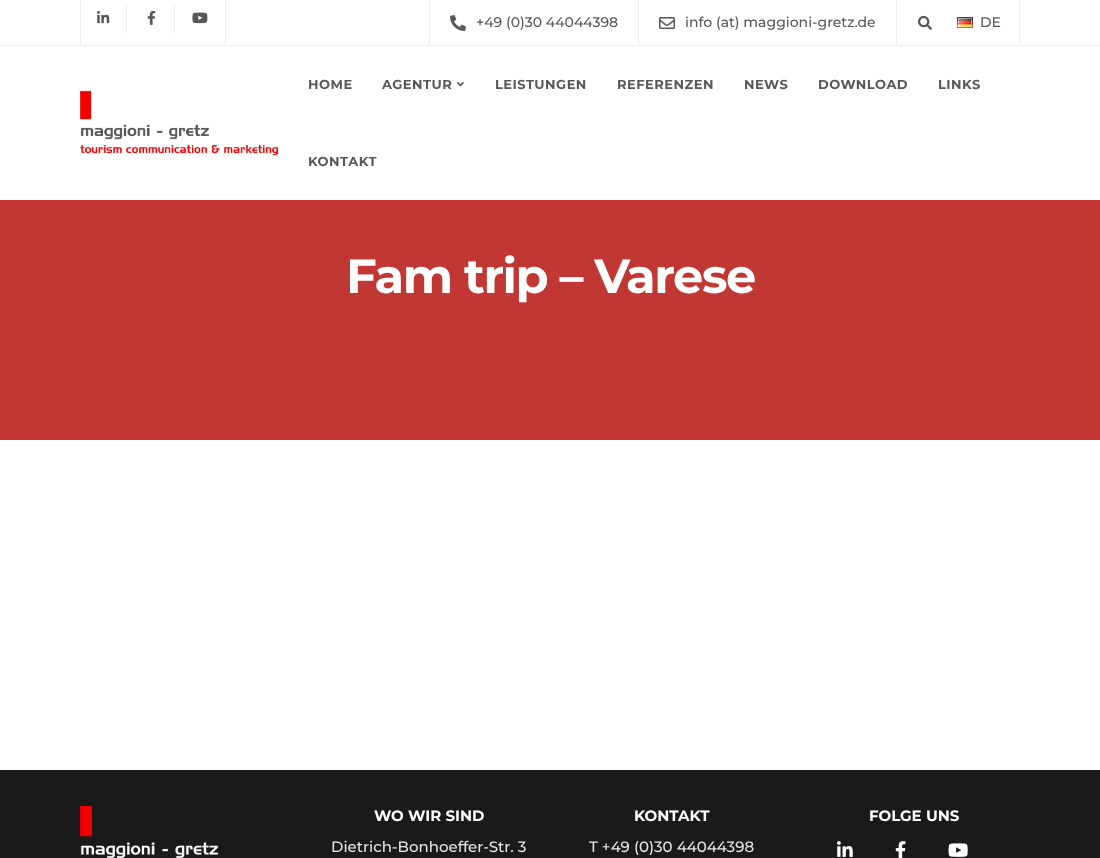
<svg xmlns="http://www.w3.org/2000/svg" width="1100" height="858">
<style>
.a{font:500 14px Montserrat;fill:#58585a}
.b{font:bold 13px Montserrat;letter-spacing:0.5px;fill:#58585a}
.c{font:bold 48px Montserrat;letter-spacing:-1.4px;fill:#fff}
.d{font:bold 15px Montserrat;fill:#fff}
.e{font:500 15px Montserrat;fill:#e5e5e5}
</style>
<rect width="100%" height="100%" fill="#fff"/>
<path fill="#ededed" d="M0 45h1100v1H0z"/>
<path fill="#ededed" d="M225 0h1v45H225z"/>
<path fill="#ededed" d="M80 0h1v45H80z"/>
<path fill="#ededed" d="M126 5h1v28H126z"/>
<image href="1.png" x="97" y="10" width="13" height="14"/>
<path fill="#ededed" d="M174 5h1v28H174z"/>
<image href="2.png" x="147" y="10" width="9" height="15"/>
<image href="3.png" x="192" y="12" width="16" height="12"/>
<path fill="#ededed" d="M429 0h1v45H429z"/>
<path fill="#ededed" d="M638 0h1v45H638z"/>
<image href="4.png" x="450" y="15" width="16" height="16"/>
<image href="5.png" x="659" y="17" width="16" height="12"/>
<path fill="#ededed" d="M1019 0h1v45H1019z"/>
<path fill="#ededed" d="M896 0h1v45H896z"/>
<image href="6.png" x="918" y="15" width="14" height="15"/>
<image href="7.png" x="957" y="17" width="16" height="11"/>
<image href="8.png" x="80" y="90" width="198" height="66"/>
<image href="9.png" x="457" y="82" width="7" height="5"/>
<path fill="#c03733" d="M0 200h1100v240H0z"/>
<path fill="#1a1a1a" d="M0 770h1100v88H0z"/>
<image href="10.png" x="80" y="806" width="139" height="52"/>
<image href="11.png" x="837" y="841" width="16" height="16"/>
<image href="12.png" x="895" y="841" width="11" height="17"/>
<image href="13.png" x="948" y="843" width="20" height="14"/>
<text class="a" x="476" y="27">+49 (0)30 44044398</text>
<text class="a" x="685" y="27">info (at) maggioni-gretz.de</text>
<text class="a" x="980" y="27">DE</text>
<text class="b" x="308" y="89">HOME</text>
<text class="b" x="382" y="89">AGENTUR</text>
<text class="b" x="495" y="89">LEISTUNGEN</text>
<text class="b" x="617" y="89">REFERENZEN</text>
<text class="b" x="744" y="89">NEWS</text>
<text class="b" x="818" y="89">DOWNLOAD</text>
<text class="b" x="938" y="89">LINKS</text>
<text class="b" x="308" y="166">KONTAKT</text>
<text class="c" x="346" y="293">Fam trip – Varese</text>
<text class="d" x="374" y="821">WO WIR SIND</text>
<text class="e" x="331" y="852">Dietrich-Bonhoeffer-Str. 3</text>
<text class="d" x="634" y="821">KONTAKT</text>
<text class="e" x="589" y="852">T +49 (0)30 44044398</text>
<text class="d" x="869" y="821">FOLGE UNS</text>
</svg>
